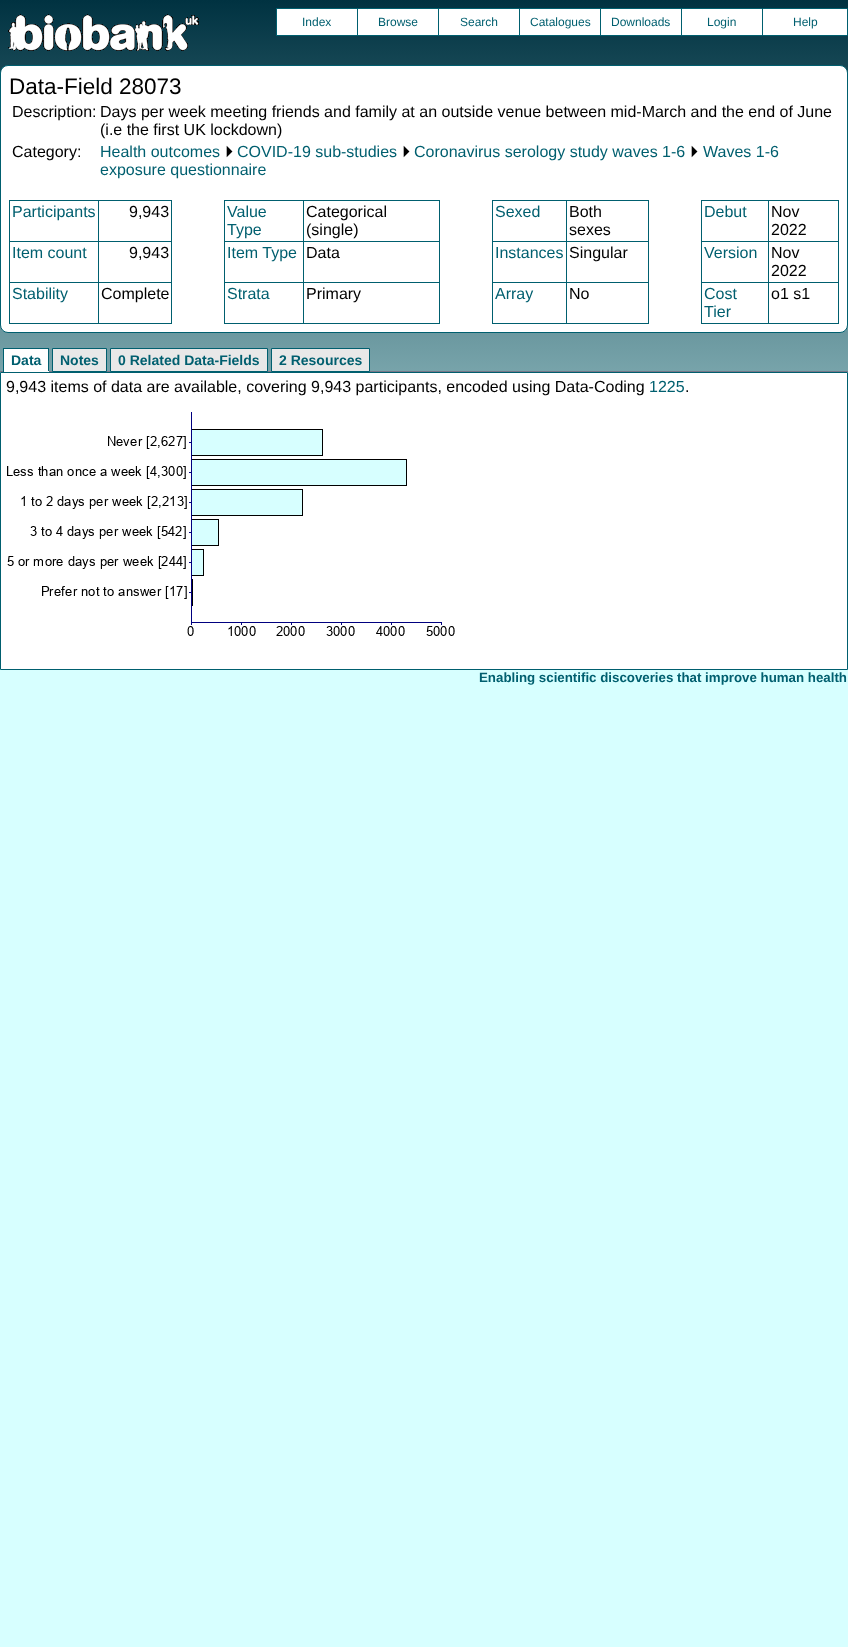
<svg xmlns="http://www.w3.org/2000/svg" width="848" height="1647">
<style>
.a{font:12px Liberation Sans;fill:#005f6f}
.b{font:22.5px Liberation Sans;fill:#000}
.c{font:16px Liberation Sans;fill:#000}
.d{font:16px Liberation Sans;fill:#005f6f}
.e{font:16px FreeSans;fill:#000}
.f{font:bold 14px Liberation Sans;fill:#005f6f}
.g{font:bold 13.3px Liberation Sans;fill:#005f6f}
</style>
<defs>
<linearGradient id="g1" gradientUnits="userSpaceOnUse" x1="0" y1="0" x2="0" y2="670"><stop offset="0" stop-color="#003241"/><stop offset="1" stop-color="#d7ffff"/></linearGradient>
</defs>
<rect width="100%" height="100%" fill="#d7ffff"/>
<path fill="url(#g1)" d="M0 0h848v371H0z"/>
<image href="1.png" x="8" y="14" width="191" height="37"/>
<path fill="#005f6f" d="M276 8h486v1H276z"/>
<path fill="#005f6f" d="M276 35h486v1H276z"/>
<path fill="#005f6f" d="M276 8h1v28H276z"/>
<path fill="#fff" d="M277 9h80v26H277z"/>
<path fill="#005f6f" d="M357 8h1v28H357z"/>
<path fill="#fff" d="M358 9h80v26H358z"/>
<path fill="#005f6f" d="M438 8h1v28H438z"/>
<path fill="#fff" d="M439 9h80v26H439z"/>
<path fill="#005f6f" d="M519 8h1v28H519z"/>
<path fill="#fff" d="M520 9h80v26H520z"/>
<path fill="#005f6f" d="M600 8h1v28H600z"/>
<path fill="#fff" d="M601 9h80v26H601z"/>
<path fill="#005f6f" d="M681 8h1v28H681z"/>
<path fill="#fff" d="M682 9h80v26H682z"/>
<path fill="none" stroke="#005f6f" d="M762.5 8.5h85v27H762.5z"/>
<path fill="#fff" d="M763 9h84v26H763z"/>
<rect fill="#fff" stroke="#005f6f" x="0.5" y="65.5" width="847" height="267" rx="7.5"/>
<path fill="#005f6f" d="M98 200h74v1H98z"/>
<path fill="#005f6f" d="M98 241h74v1H98z"/>
<path fill="#005f6f" d="M98 282h74v1H98z"/>
<path fill="#005f6f" d="M171 282h1v42H171z"/>
<path fill="#005f6f" d="M98 323h74v1H98z"/>
<path fill="#005f6f" d="M98 282h1v42H98z"/>
<path fill="#005f6f" d="M9 282h90v1H9z"/>
<path fill="#005f6f" d="M98 241h1v42H98z"/>
<path fill="#005f6f" d="M9 241h90v1H9z"/>
<path fill="#005f6f" d="M98 200h1v42H98z"/>
<path fill="#005f6f" d="M9 200h90v1H9z"/>
<path fill="#005f6f" d="M9 323h90v1H9z"/>
<path fill="#005f6f" d="M9 282h1v42H9z"/>
<path fill="#005f6f" d="M9 241h1v42H9z"/>
<path fill="#005f6f" d="M9 200h1v42H9z"/>
<path fill="#005f6f" d="M171 241h1v42H171z"/>
<path fill="#005f6f" d="M171 200h1v42H171z"/>
<path fill="#005f6f" d="M303 200h137v1H303z"/>
<path fill="#005f6f" d="M303 241h137v1H303z"/>
<path fill="#005f6f" d="M303 282h137v1H303z"/>
<path fill="#005f6f" d="M439 282h1v42H439z"/>
<path fill="#005f6f" d="M303 323h137v1H303z"/>
<path fill="#005f6f" d="M303 282h1v42H303z"/>
<path fill="#005f6f" d="M224 282h80v1H224z"/>
<path fill="#005f6f" d="M303 241h1v42H303z"/>
<path fill="#005f6f" d="M224 241h80v1H224z"/>
<path fill="#005f6f" d="M303 200h1v42H303z"/>
<path fill="#005f6f" d="M224 200h80v1H224z"/>
<path fill="#005f6f" d="M224 323h80v1H224z"/>
<path fill="#005f6f" d="M224 282h1v42H224z"/>
<path fill="#005f6f" d="M224 241h1v42H224z"/>
<path fill="#005f6f" d="M224 200h1v42H224z"/>
<path fill="#005f6f" d="M439 241h1v42H439z"/>
<path fill="#005f6f" d="M439 200h1v42H439z"/>
<path fill="#005f6f" d="M566 200h83v1H566z"/>
<path fill="#005f6f" d="M566 241h83v1H566z"/>
<path fill="#005f6f" d="M566 282h83v1H566z"/>
<path fill="#005f6f" d="M648 282h1v42H648z"/>
<path fill="#005f6f" d="M566 323h83v1H566z"/>
<path fill="#005f6f" d="M566 282h1v42H566z"/>
<path fill="#005f6f" d="M492 282h75v1H492z"/>
<path fill="#005f6f" d="M566 241h1v42H566z"/>
<path fill="#005f6f" d="M492 241h75v1H492z"/>
<path fill="#005f6f" d="M566 200h1v42H566z"/>
<path fill="#005f6f" d="M492 200h75v1H492z"/>
<path fill="#005f6f" d="M492 323h75v1H492z"/>
<path fill="#005f6f" d="M492 282h1v42H492z"/>
<path fill="#005f6f" d="M492 241h1v42H492z"/>
<path fill="#005f6f" d="M492 200h1v42H492z"/>
<path fill="#005f6f" d="M648 241h1v42H648z"/>
<path fill="#005f6f" d="M648 200h1v42H648z"/>
<path fill="#005f6f" d="M768 200h71v1H768z"/>
<path fill="#005f6f" d="M768 241h71v1H768z"/>
<path fill="#005f6f" d="M768 282h71v1H768z"/>
<path fill="#005f6f" d="M838 282h1v42H838z"/>
<path fill="#005f6f" d="M768 323h71v1H768z"/>
<path fill="#005f6f" d="M768 282h1v42H768z"/>
<path fill="#005f6f" d="M701 282h68v1H701z"/>
<path fill="#005f6f" d="M768 241h1v42H768z"/>
<path fill="#005f6f" d="M701 241h68v1H701z"/>
<path fill="#005f6f" d="M768 200h1v42H768z"/>
<path fill="#005f6f" d="M701 200h68v1H701z"/>
<path fill="#005f6f" d="M701 323h68v1H701z"/>
<path fill="#005f6f" d="M701 282h1v42H701z"/>
<path fill="#005f6f" d="M701 241h1v42H701z"/>
<path fill="#005f6f" d="M701 200h1v42H701z"/>
<path fill="#005f6f" d="M838 241h1v42H838z"/>
<path fill="#005f6f" d="M838 200h1v42H838z"/>
<path fill="#778" d="M0 371h848v1H0z"/>
<path fill="#fff" d="M4 349h44v22H4z"/>
<path fill="#005f6f" d="M3 348h46v1H3z"/>
<path fill="#005f6f" d="M48 348h1v24H48z"/>
<path fill="#fff" d="M3 371h46v1H3z"/>
<path fill="#005f6f" d="M3 348h1v24H3z"/>
<path fill="#e8e8e8" stroke="#005f6f" d="M52.5 348.5h54v23H52.5z"/>
<path fill="#e8e8e8" stroke="#005f6f" d="M110.5 348.5h157v23H110.5z"/>
<path fill="#e8e8e8" stroke="#005f6f" d="M271.5 348.5h98v23H271.5z"/>
<path fill="#fff" stroke="#005f6f" d="M0.5 372.5h847v297H0.5z"/>
<image href="2.png" x="7" y="412" width="448" height="224"/>
<text class="a" x="302" y="26">Index</text>
<text class="a" x="378" y="26">Browse</text>
<text class="a" x="460" y="26">Search</text>
<text class="a" x="530" y="26">Catalogues</text>
<text class="a" x="611" y="26">Downloads</text>
<text class="a" x="707" y="26">Login</text>
<text class="a" x="793" y="26">Help</text>
<text class="b" x="9" y="94">Data-Field 28073</text>
<text class="c" x="12" y="117">Description:</text>
<text class="c" x="100" y="117">Days per week meeting friends and family at an outside venue between mid-March and the end of June</text>
<text class="c" x="100" y="135">(i.e the first UK lockdown)</text>
<text class="c" x="12" y="157">Category:</text>
<text class="d" x="100" y="157">Health outcomes</text>
<text class="e" x="225" y="157">⏵</text>
<text class="d" x="237" y="157">COVID-19 sub-studies</text>
<text class="e" x="402" y="157">⏵</text>
<text class="d" x="414" y="157">Coronavirus serology study waves 1-6</text>
<text class="e" x="690" y="157">⏵</text>
<text class="d" x="703" y="157">Waves 1-6</text>
<text class="d" x="100" y="175">exposure questionnaire</text>
<text class="d" x="12" y="217">Participants</text>
<text class="c" x="129" y="217">9,943</text>
<text class="d" x="227" y="217">Value</text>
<text class="d" x="227" y="235">Type</text>
<text class="c" x="306" y="217">Categorical</text>
<text class="c" x="306" y="235">(single)</text>
<text class="d" x="495" y="217">Sexed</text>
<text class="c" x="569" y="217">Both</text>
<text class="c" x="569" y="235">sexes</text>
<text class="d" x="704" y="217">Debut</text>
<text class="c" x="771" y="217">Nov</text>
<text class="c" x="771" y="235">2022</text>
<text class="d" x="12" y="258">Item count</text>
<text class="c" x="129" y="258">9,943</text>
<text class="d" x="227" y="258">Item Type</text>
<text class="c" x="306" y="258">Data</text>
<text class="d" x="495" y="258">Instances</text>
<text class="c" x="569" y="258">Singular</text>
<text class="d" x="704" y="258">Version</text>
<text class="c" x="771" y="258">Nov</text>
<text class="c" x="771" y="276">2022</text>
<text class="d" x="12" y="299">Stability</text>
<text class="c" x="101" y="299">Complete</text>
<text class="d" x="227" y="299">Strata</text>
<text class="c" x="306" y="299">Primary</text>
<text class="d" x="495" y="299">Array</text>
<text class="c" x="569" y="299">No</text>
<text class="d" x="704" y="299">Cost</text>
<text class="d" x="704" y="317">Tier</text>
<text class="c" x="771" y="299">o1 s1</text>
<text class="f" x="11" y="365">Data</text>
<text class="f" x="60" y="365">Notes</text>
<text class="f" x="118" y="365">0 Related Data-Fields</text>
<text class="f" x="279" y="365">2 Resources</text>
<text class="c" x="6" y="392">9,943 items of data are available, covering 9,943 participants, encoded using Data-Coding</text>
<text class="d" x="649" y="392">1225</text>
<text class="c" x="685" y="392">.</text>
<text class="g" x="479" y="682">Enabling scientific discoveries that improve human health</text>
</svg>
